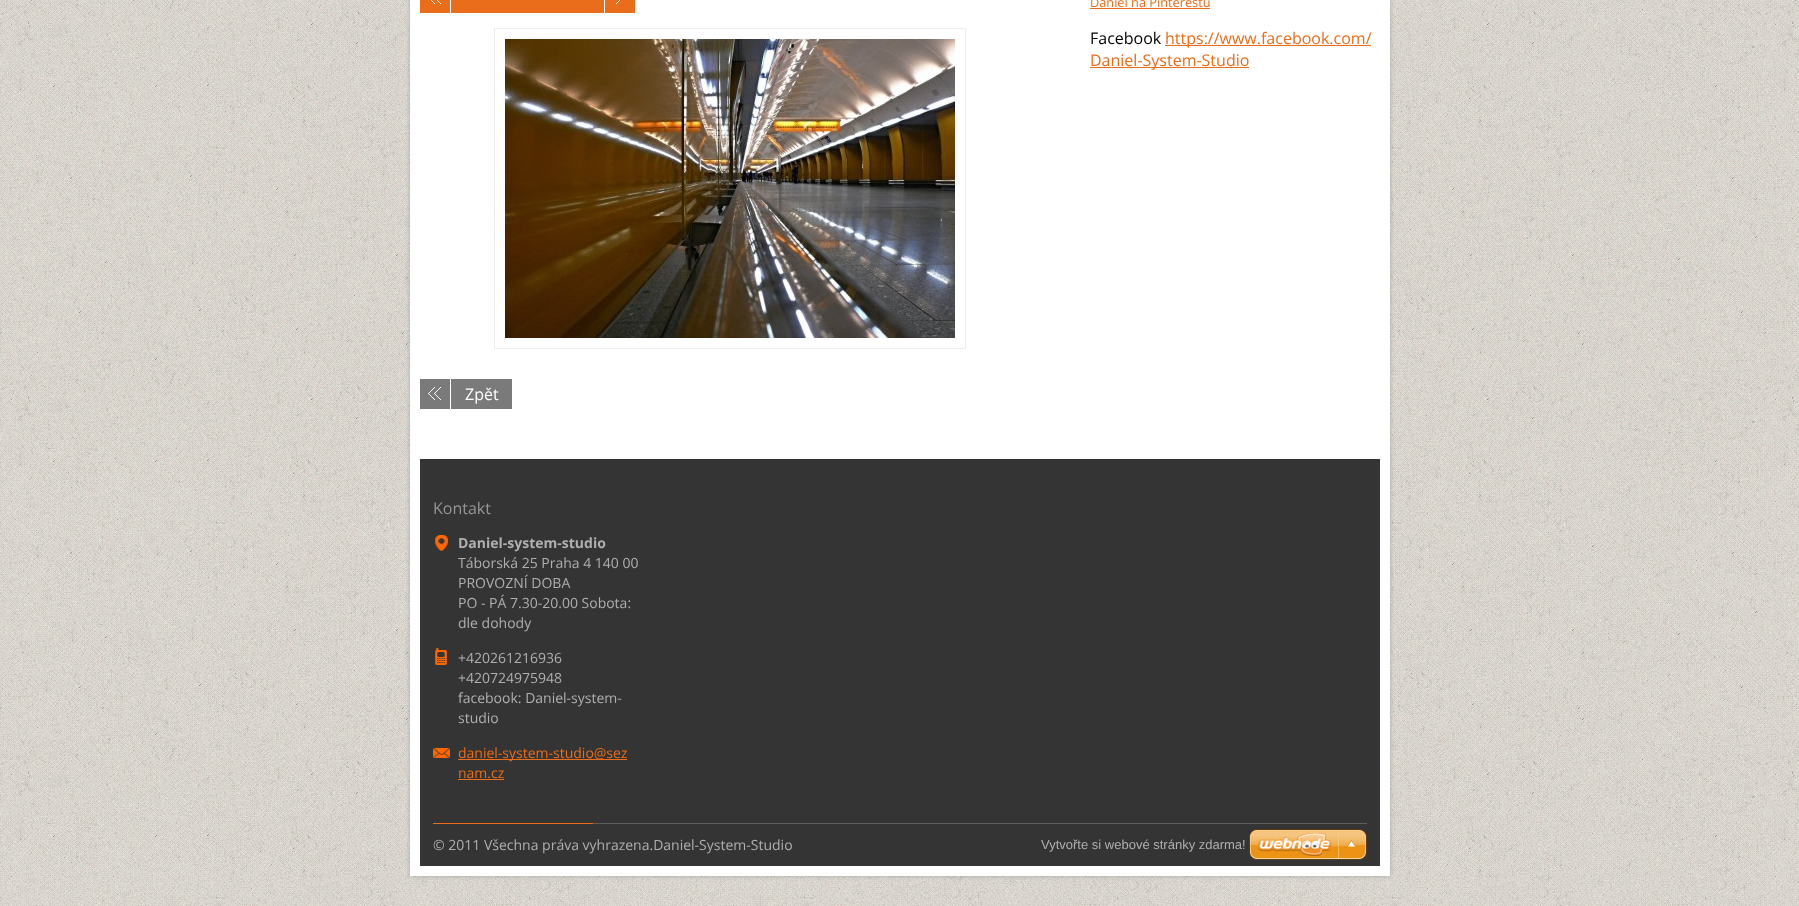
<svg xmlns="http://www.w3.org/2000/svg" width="1799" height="906">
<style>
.a{font:12.75px Open Sans;fill:#e96d1a}
.b{font:16px Open Sans;fill:#000}
.c{font:16px Open Sans;fill:#e96d1a}
.d{font:16px Open Sans;fill:#fff}
.e{font:16px Open Sans;fill:#959595}
.f{font:bold 14px Open Sans;fill:#b0afaf}
.g{font:14px Open Sans;fill:#b0afaf}
.h{font:14px Open Sans;fill:#e96d1a}
.i{font:13px Liberation Sans;fill:#b0afaf}
</style>
<rect width="100%" height="100%" fill="#fff"/>
<image href="1.png" x="0" y="0" width="1799" height="906"/>
<path fill="#989898bf" filter="blur(2px)" d="M410 -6h980v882H410z"/>
<path fill="#fff" d="M410 0h980v876H410z"/>
<path fill="#e96d1a" d="M1090 8h120v1H1090z"/>
<path fill="#e96d1a" d="M1165 45h206v1H1165z"/>
<path fill="#e96d1a" d="M1090 67h159v1H1090z"/>
<path fill="#e96d1a" d="M420 0h30v13H420z"/>
<image href="2.png" x="431" y="0" width="10" height="4"/>
<path fill="#e96d1a" d="M451 0h153v13H451z"/>
<path fill="#e96d1a" d="M605 0h30v13H605z"/>
<image href="3.png" x="616" y="0" width="4" height="4"/>
<path fill="none" stroke="#ececec" d="M494.5 28.5h471v320H494.5z"/>
<image href="4.png" x="505" y="39" width="450" height="299"/>
<path fill="#7a7a7a" d="M420 379h92v30H420z"/>
<image href="5.png" x="428" y="387" width="13" height="13"/>
<path fill="#fff" d="M450 379h1v30H450z"/>
<path fill="#343434" d="M420 459h960v407H420z"/>
<image href="6.png" x="435" y="535" width="13" height="16"/>
<image href="7.png" x="435" y="648" width="12" height="17"/>
<image href="8.png" x="433" y="748" width="17" height="10"/>
<path fill="#e96d1a" d="M458 759h169v1H458z"/>
<path fill="#e96d1a" d="M458 779h46v1H458z"/>
<path fill="#5f5f5f" d="M593 823h774v1H593z"/>
<path fill="#e96d1a" d="M433 823h160v1H433z"/>
<image href="9.png" x="1249" y="829" width="118" height="31"/>
<text class="a" x="1090" y="7">Daniel na Pinterestu</text>
<text class="b" x="1090" y="44">Facebook</text>
<text class="c" x="1165" y="44">https://www.facebook.com/</text>
<text class="c" x="1090" y="66">Daniel-System-Studio</text>
<text class="d" x="465" y="400">Zpět</text>
<text class="e" x="433" y="514">Kontakt</text>
<text class="f" x="458" y="548">Daniel-system-studio</text>
<text class="g" x="458" y="568">Táborská 25 Praha 4 140 00</text>
<text class="g" x="458" y="588">PROVOZNÍ DOBA</text>
<text class="g" x="458" y="608">PO - PÁ 7.30-20.00 Sobota:</text>
<text class="g" x="458" y="628">dle dohody</text>
<text class="g" x="458" y="663">+420261216936</text>
<text class="g" x="458" y="683">+420724975948</text>
<text class="g" x="458" y="703">facebook: Daniel-system-</text>
<text class="g" x="458" y="723">studio</text>
<text class="h" x="458" y="758">daniel-system-studio@sez</text>
<text class="h" x="458" y="778">nam.cz</text>
<text class="g" x="433" y="850">© 2011 Všechna práva vyhrazena.Daniel-System-Studio</text>
<text class="i" x="1041" y="849">Vytvořte si webové stránky zdarma!</text>
</svg>
